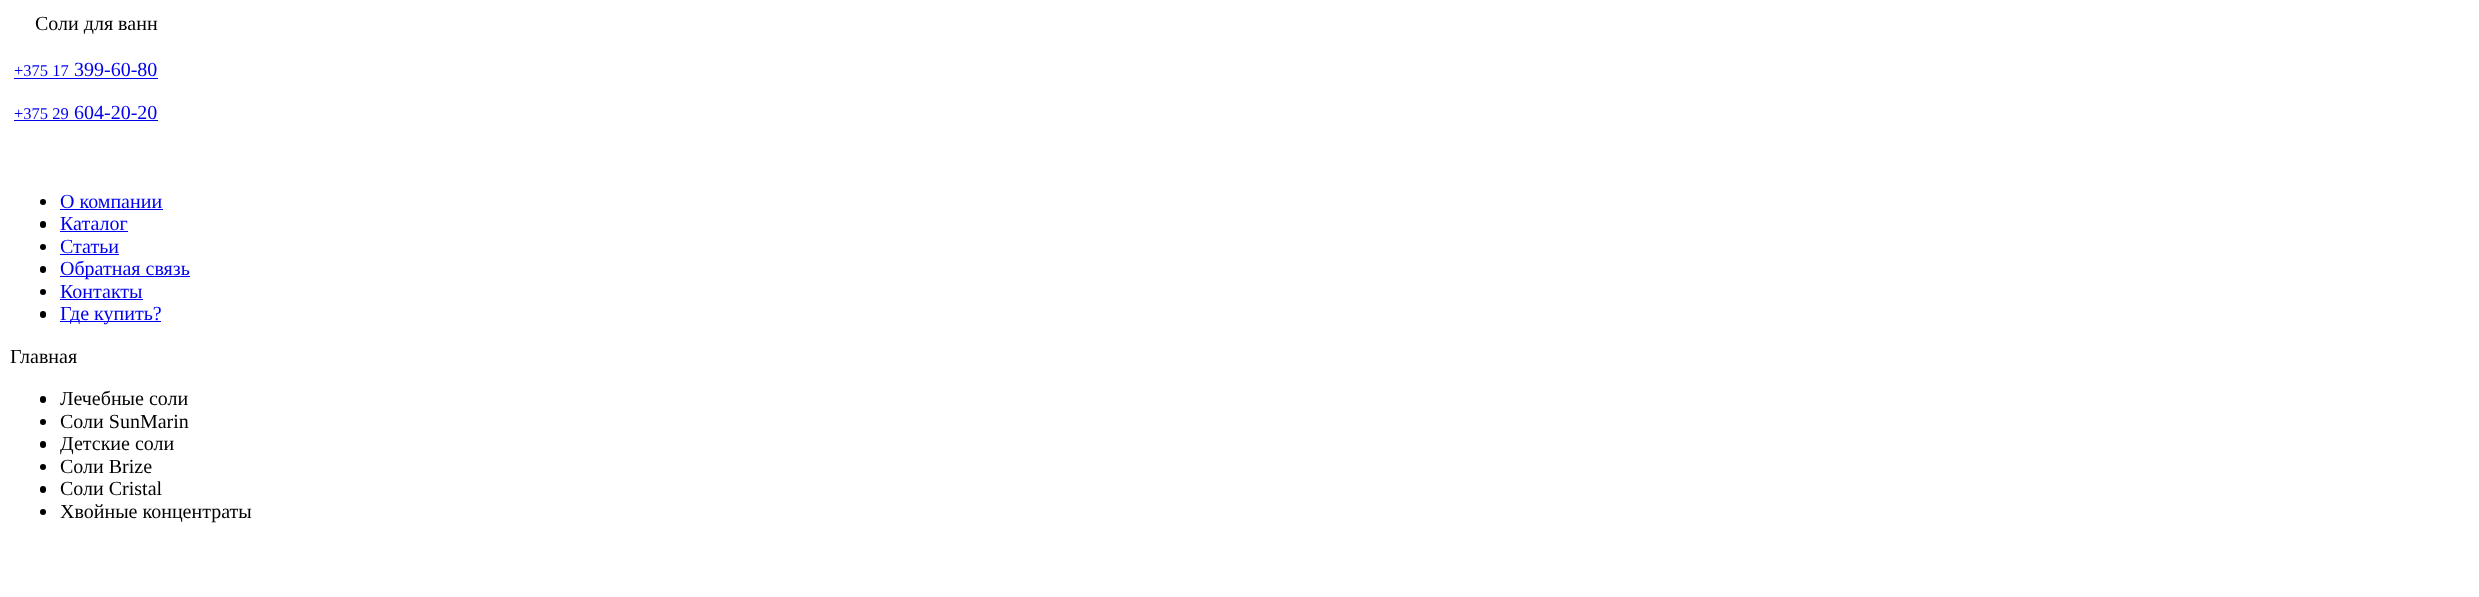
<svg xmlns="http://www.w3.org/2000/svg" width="2479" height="597">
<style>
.a{font:20px Liberation Serif;fill:#000}
.b{font:16.5px Liberation Serif;fill:#00e}
.c{font:20px Liberation Serif;fill:#00e}
</style>
<rect width="100%" height="100%" fill="#fff"/>
<path fill="#00e" d="M14 78h144v1H14z"/>
<path fill="#00e" d="M14 120h144v1H14z"/>
<circle fill="#000" cx="43" cy="202" r="3"/>
<path fill="#00e" d="M60 209h103v1H60z"/>
<rect fill="#000" x="40" y="221" width="6" height="7" rx="3"/>
<path fill="#00e" d="M60 231h68v1H60z"/>
<circle fill="#000" cx="43" cy="247" r="3"/>
<path fill="#00e" d="M60 254h59v1H60z"/>
<rect fill="#000" x="40" y="266" width="6" height="7" rx="3"/>
<path fill="#00e" d="M60 276h130v1H60z"/>
<circle fill="#000" cx="43" cy="292" r="3"/>
<path fill="#00e" d="M60 299h83v1H60z"/>
<rect fill="#000" x="40" y="311" width="6" height="7" rx="3"/>
<path fill="#00e" d="M60 321h101v1H60z"/>
<rect fill="#000" x="40" y="396" width="6" height="7" rx="3"/>
<circle fill="#000" cx="43" cy="422" r="3"/>
<rect fill="#000" x="40" y="441" width="6" height="7" rx="3"/>
<circle fill="#000" cx="43" cy="467" r="3"/>
<rect fill="#000" x="40" y="486" width="6" height="7" rx="3"/>
<circle fill="#000" cx="43" cy="512" r="3"/>
<text class="a" x="35" y="30">Соли для ванн</text>
<text class="b" x="14" y="76">+375 17</text>
<text class="c" x="74" y="76">399-60-80</text>
<text class="b" x="14" y="119">+375 29</text>
<text class="c" x="74" y="119">604-20-20</text>
<text class="c" x="60" y="208">О компании</text>
<text class="c" x="60" y="230">Каталог</text>
<text class="c" x="60" y="253">Статьи</text>
<text class="c" x="60" y="275">Обратная связь</text>
<text class="c" x="60" y="298">Контакты</text>
<text class="c" x="60" y="320">Где купить?</text>
<text class="a" x="10" y="363">Главная</text>
<text class="a" x="60" y="405">Лечебные соли</text>
<text class="a" x="60" y="428">Соли SunMarin</text>
<text class="a" x="60" y="450">Детские соли</text>
<text class="a" x="60" y="473">Соли Brize</text>
<text class="a" x="60" y="495">Соли Cristal</text>
<text class="a" x="60" y="518">Хвойные концентраты</text>
</svg>
